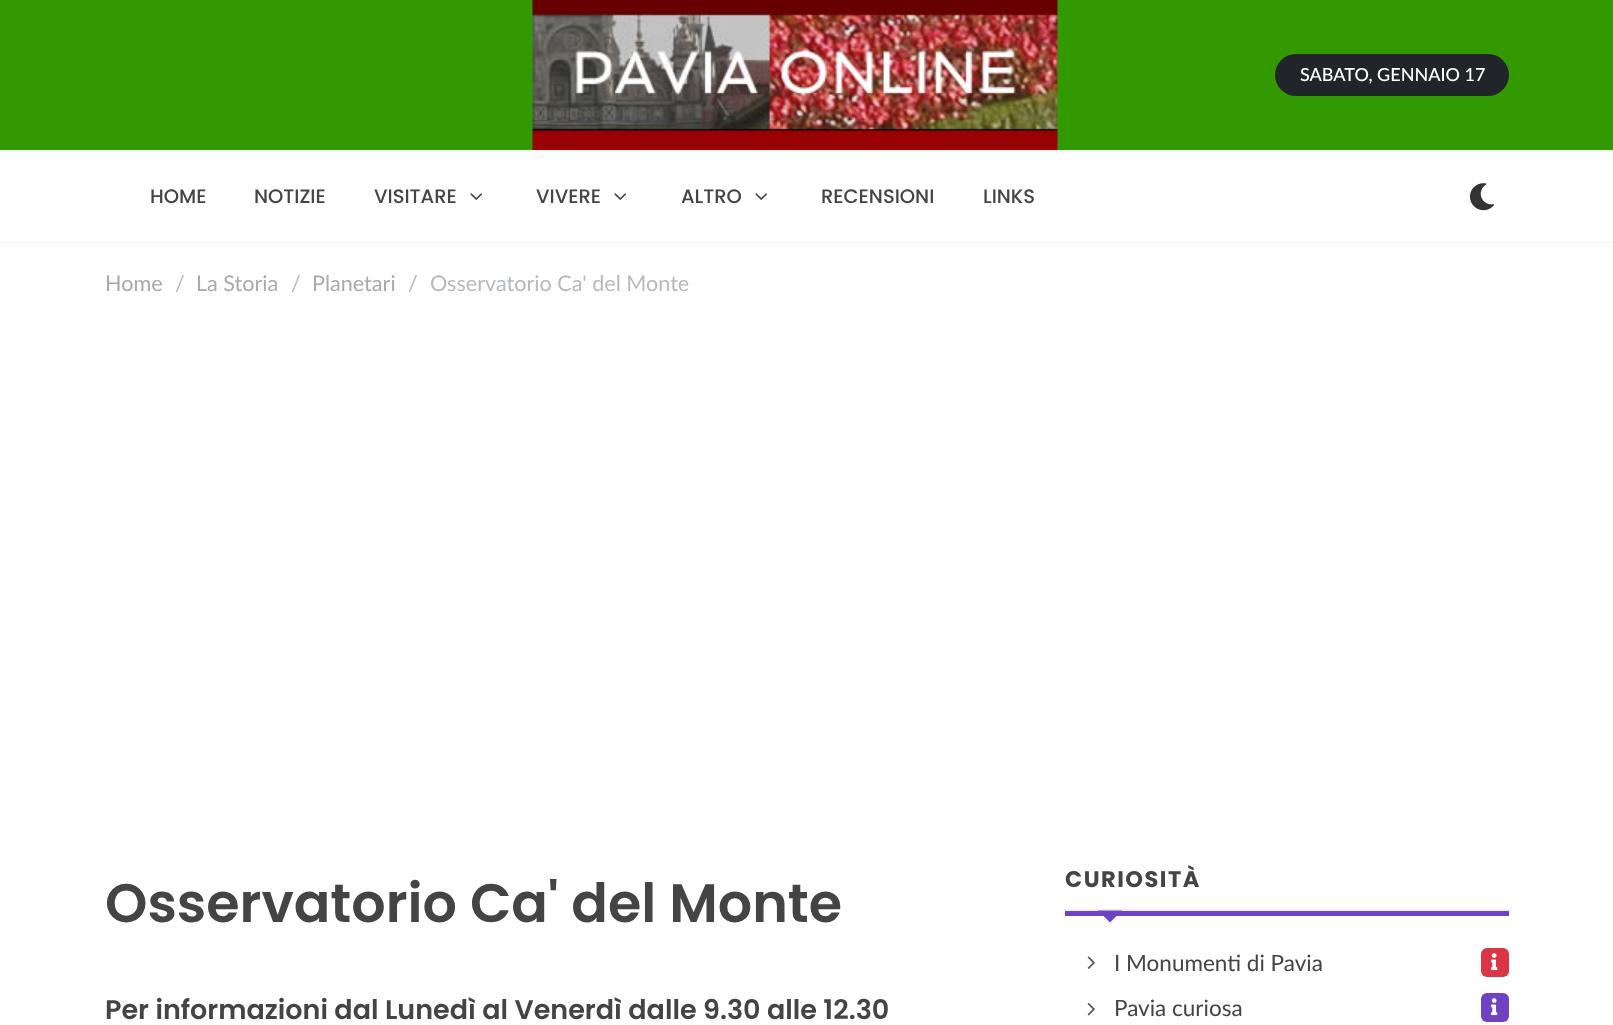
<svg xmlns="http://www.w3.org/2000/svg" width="1613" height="1025">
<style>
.a{font:500 18px Lato;fill:#fff}
.b{font:500 19.5px Poppins;fill:#444}
.c{font:21.6px Lato;fill:#aaa}
.d{font:21.6px Lato;fill:#b6babe}
.e{font:600 54px Poppins;fill:#444}
.f{font:600 27px Poppins;fill:#444}
.g{font:bold 22.5px Poppins;letter-spacing:1.5px;fill:#444}
.h{font:22.5px Lato;fill:#444}
</style>
<rect width="100%" height="100%" fill="#fff"/>
<path fill="#f5f5f5" d="M0 242h1613v1H0z"/>
<path fill="#390" d="M0 0h1613v150H0z"/>
<image href="1.png" x="532" y="0" width="526" height="150"/>
<rect fill="#212529" x="1275" y="54" width="234" height="42" rx="21"/>
<path fill="#f5f5f5" d="M0 150h1613v2H0z"/>
<image href="2.png" x="470" y="193" width="13" height="7"/>
<image href="2.png" x="614" y="193" width="13" height="7"/>
<image href="2.png" x="755" y="193" width="13" height="7"/>
<image href="3.png" x="1469" y="183" width="25" height="28"/>
<path fill="#eee" d="M1065 909h444v2H1065z"/>
<path fill="#6f42c1" d="M1065 911h444v5H1065z"/>
<path fill="#6f42c1" d="M1098 910.5h24l-12 12z"/>
<image href="4.png" x="1087" y="956" width="8" height="13"/>
<rect fill="#dc3545" x="1481" y="948" width="28" height="29" rx="6"/>
<image href="5.png" x="1491" y="953" width="7" height="18"/>
<image href="6.png" x="1087" y="1003" width="8" height="13"/>
<rect fill="#6f42c1" x="1481" y="993" width="28" height="29" rx="6"/>
<image href="7.png" x="1491" y="998" width="7" height="18"/>
<text class="a" x="1300" y="81">SABATO, GENNAIO 17</text>
<text class="b" x="150" y="203">HOME</text>
<text class="b" x="254" y="203">NOTIZIE</text>
<text class="b" x="374" y="203">VISITARE</text>
<text class="b" x="536" y="203">VIVERE</text>
<text class="b" x="681" y="203">ALTRO</text>
<text class="b" x="821" y="203">RECENSIONI</text>
<text class="b" x="983" y="203">LINKS</text>
<text class="c" x="105" y="291">Home</text>
<text class="d" x="175" y="291">/</text>
<text class="c" x="196" y="291">La Storia</text>
<text class="d" x="291" y="291">/</text>
<text class="c" x="312" y="291">Planetari</text>
<text class="d" x="408" y="291">/</text>
<text class="d" x="430" y="291">Osservatorio Ca' del Monte</text>
<text class="e" x="105" y="922">Osservatorio Ca' del Monte</text>
<text class="f" x="105" y="1019">Per informazioni dal Lunedì al Venerdì dalle 9.30 alle 12.30</text>
<text class="g" x="1065" y="887">CURIOSITÀ</text>
<text class="h" x="1114" y="971">I Monumenti di Pavia</text>
<text class="h" x="1114" y="1016">Pavia curiosa</text>
</svg>
